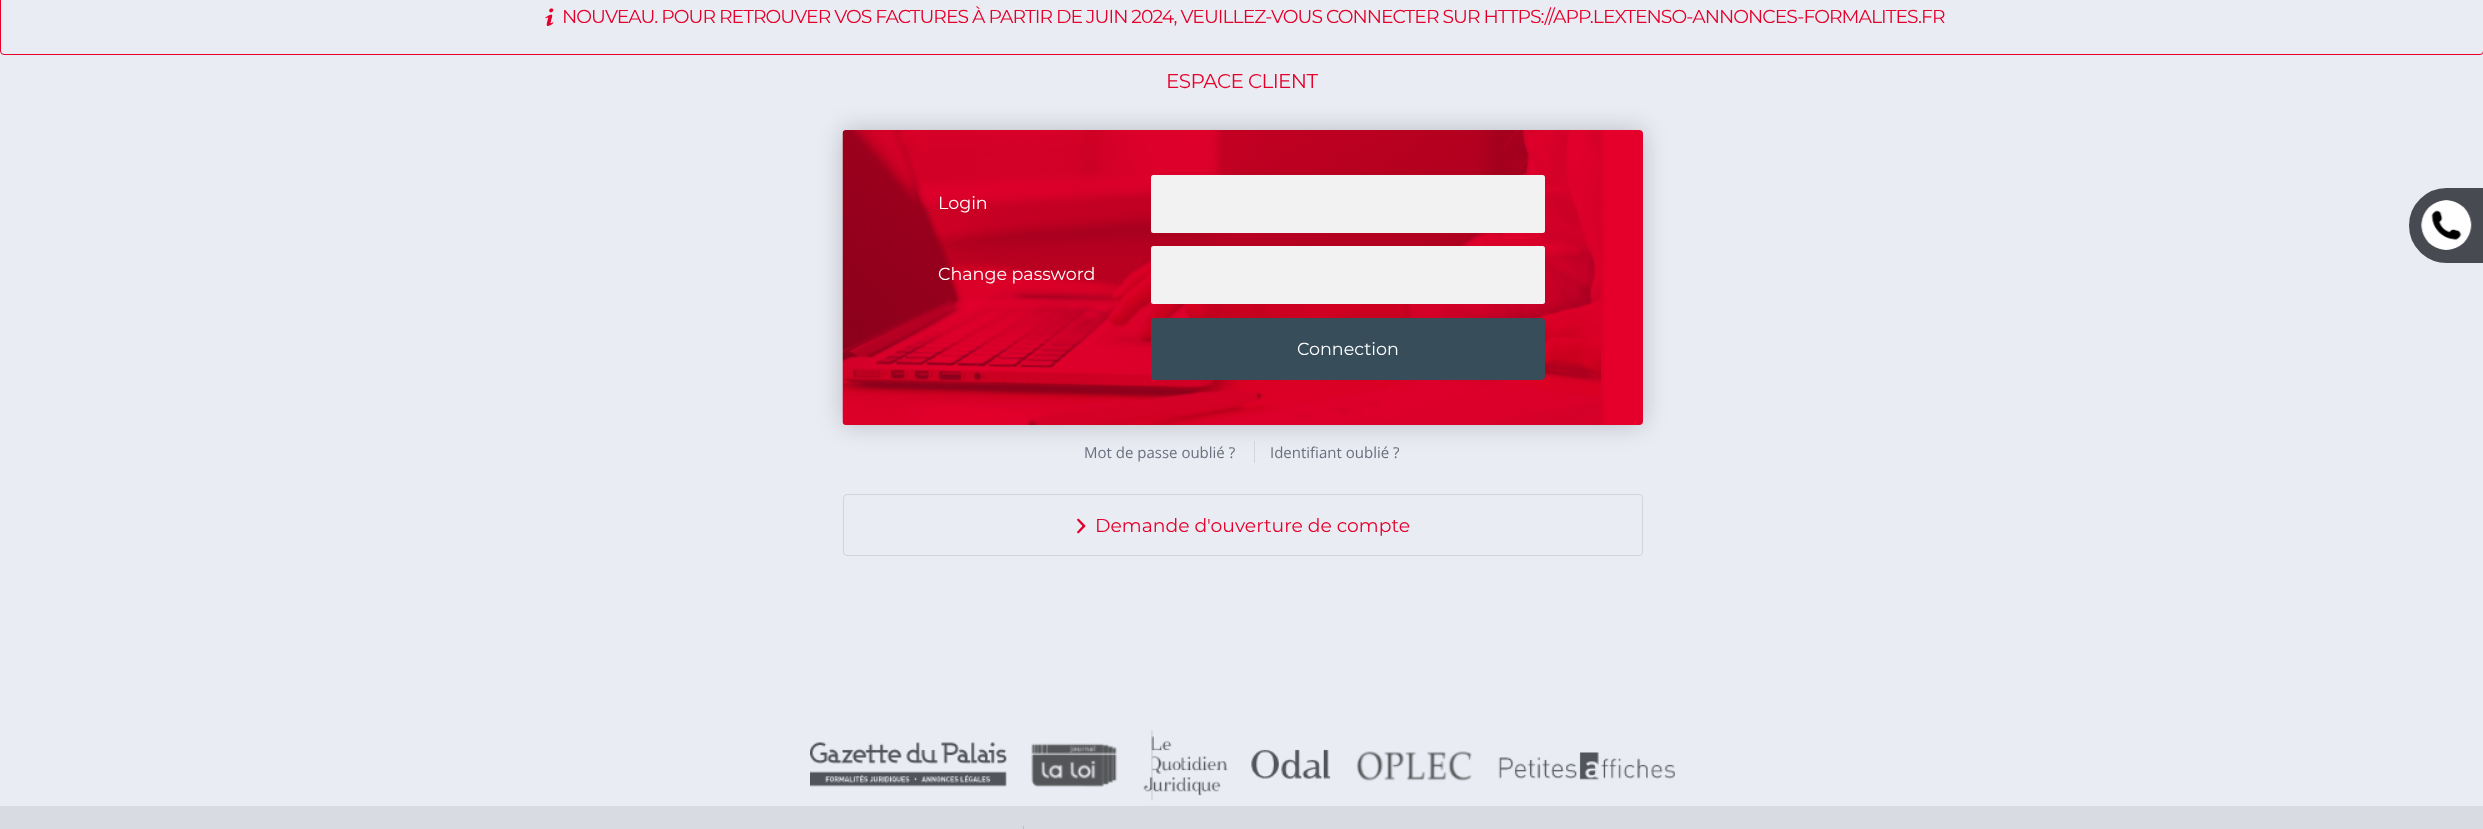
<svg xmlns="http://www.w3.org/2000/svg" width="2483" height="829">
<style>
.a{font:18.75px Montserrat;letter-spacing:-0.96px;fill:#e4002b}
.b{font:20px Montserrat;letter-spacing:-0.6px;fill:#e4002b}
.c{font:17.5px Montserrat;fill:#fff}
.d{font:15px Open Sans;fill:#6b6f7d}
.e{font:18.75px Montserrat;fill:#e4002b}
</style>
<rect width="100%" height="100%" fill="#e9ecf3"/>
<rect fill="none" stroke="#e4002b" x="0.5" y="-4.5" width="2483" height="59" rx="3.5"/>
<image href="1.png" x="545" y="8" width="9" height="18"/>
<rect fill="#00000033" filter="blur(12.5px)" x="843" y="130" width="800" height="295" rx="4"/>
<rect fill="#e4002b" x="843" y="130" width="800" height="295" rx="4"/>
<image href="2.png" x="842" y="130" width="762" height="295"/>
<rect fill="#f2f2f2" x="1151" y="175" width="394" height="58" rx="2.5"/>
<rect fill="#f2f2f2" x="1151" y="246" width="394" height="58" rx="2.5"/>
<rect fill="#374d5a" x="1151" y="318" width="394" height="62" rx="4"/>
<path fill="#80808033" d="M1254 441h1v22H1254z"/>
<rect fill="none" stroke="#d2d4db" x="843.5" y="494.5" width="799" height="61" rx="3.5"/>
<image href="3.png" x="1077" y="518" width="9" height="16"/>
<image href="4.png" x="810" y="730" width="865" height="71"/>
<path fill="#d9dbe3" d="M0 806h2483v23H0z"/>
<path fill="#bec0c5" d="M1023 826h1v3H1023z"/>
<path fill="#484a52" stroke="#484a52" stroke-width="13" d="M2446.5 194.5h31v62h-31c-17 0-31-14-31-31c0-17 14-31 31-31z"/>
<image href="5.png" x="2421" y="200" width="51" height="50"/>
<text class="a" x="562" y="23">NOUVEAU. POUR RETROUVER VOS FACTURES À PARTIR DE JUIN 2024, VEUILLEZ-VOUS CONNECTER SUR HTTPS://APP.LEXTENSO-ANNONCES-FORMALITES.FR</text>
<text class="b" x="1166" y="88">ESPACE CLIENT</text>
<text class="c" x="938" y="209">Login</text>
<text class="c" x="938" y="280">Change password</text>
<text class="c" x="1297" y="355">Connection</text>
<text class="d" x="1084" y="458">Mot de passe oublié ?</text>
<text class="d" x="1270" y="458">Identifiant oublié ?</text>
<text class="e" x="1095" y="532">Demande d'ouverture de compte</text>
</svg>
